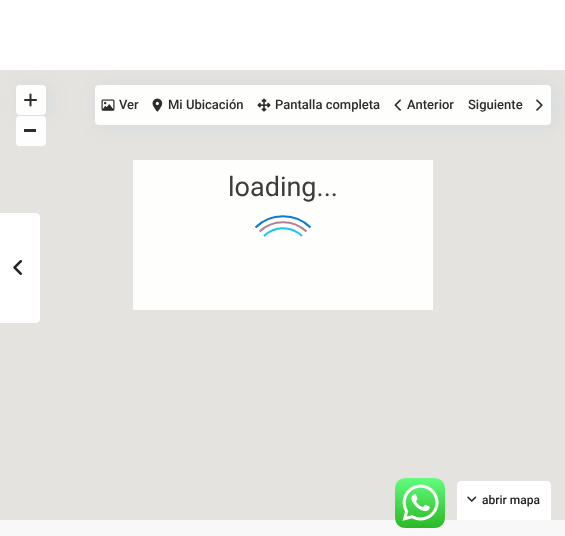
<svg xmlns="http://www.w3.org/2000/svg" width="565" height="536">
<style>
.a{font:500 13px Roboto;fill:#2c2c2b}
.b{font:500 12px Roboto;fill:#222}
.c{font:27px Roboto;fill:#3c3c3c}
</style>
<rect width="100%" height="100%" fill="#f8f8f8"/>
<path fill="#e5e3df" d="M0 70h565v450H0z"/>
<path fill="#fff" d="M-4 213h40c2 0 4 2 4 4v102c0 2-2 4-4 4h-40z"/>
<image href="1.png" x="13" y="260" width="9" height="15"/>
<rect fill="#006ee114" filter="blur(10px)" x="19" y="86" width="30" height="30" rx="4"/>
<rect fill="#006ee114" filter="blur(10px)" x="98" y="86" width="456" height="40" rx="4"/>
<path fill="#fff" d="M0 0h565v70H0z"/>
<path fill="#fefefd" d="M133 160h300v150H133z"/>
<rect fill="#fefefd" x="16" y="85" width="30" height="30" rx="4"/>
<image href="2.png" x="24" y="93" width="13" height="14"/>
<rect fill="#fefefd" x="95" y="85" width="456" height="40" rx="4"/>
<image href="3.png" x="101" y="99" width="14" height="12"/>
<image href="4.png" x="152" y="98" width="11" height="14"/>
<image href="5.png" x="257" y="98" width="14" height="14"/>
<image href="6.png" x="394" y="99" width="7" height="12"/>
<image href="7.png" x="536" y="99" width="7" height="12"/>
<rect fill="#fffffff2" x="16" y="116" width="30" height="30" rx="4"/>
<path fill="#2d2d2d" d="M24 129h12v3H24z"/>
<path fill="#fff" d="M461 481h86c2 0 4 2 4 4v35h-94v-35c0-2 2-4 4-4z"/>
<image href="8.png" x="467" y="496" width="10" height="6"/>
<path fill="none" stroke="#0b79e1" stroke-width="2" d="M255.5 227.5c15-15 40-15 55 0"/>
<path fill="none" stroke="#b38290" stroke-width="2" d="M259.5 231.5c13-12.5 34-12.5 47 0"/>
<path fill="none" stroke="#18c5f7" stroke-width="2" d="M264 236c10.5-10.5 27.5-10.5 38 0"/>
<image href="9.png" x="395" y="478" width="50" height="50"/>
<text class="a" x="119" y="109">Ver</text>
<text class="a" x="168" y="109">Mi Ubicación</text>
<text class="a" x="275" y="109">Pantalla completa</text>
<text class="a" x="407" y="109">Anterior</text>
<text class="a" x="468" y="109">Siguiente</text>
<text class="b" x="482" y="504">abrir mapa</text>
<text class="c" x="228" y="196">loading...</text>
</svg>
